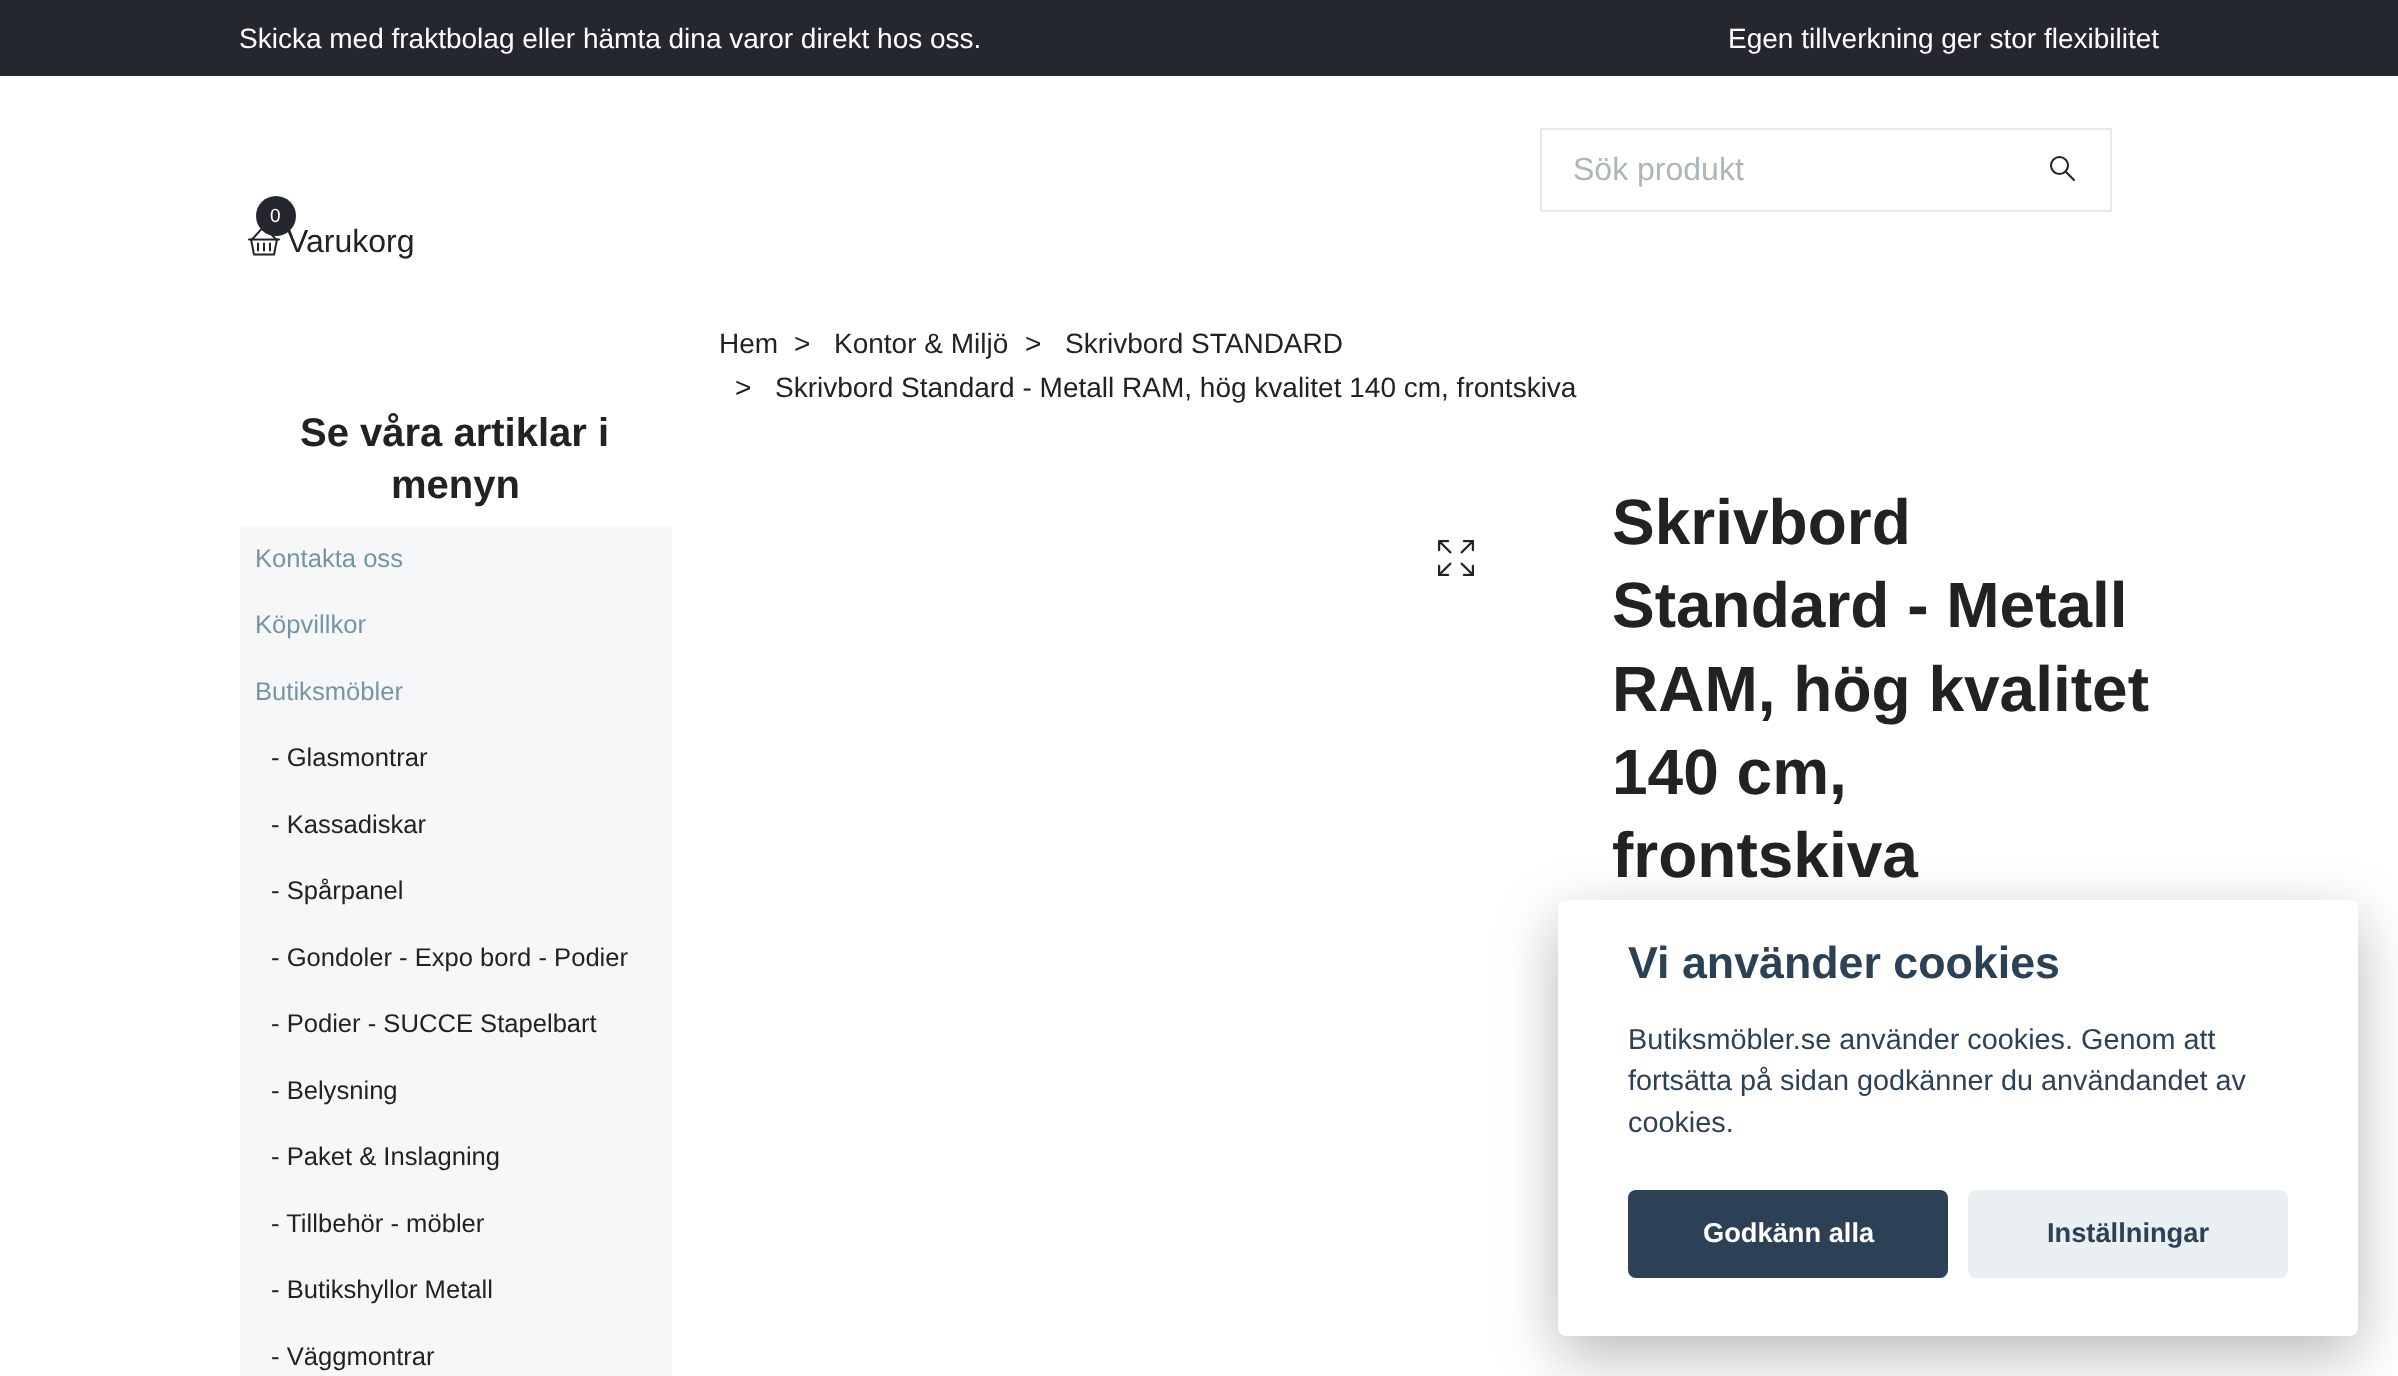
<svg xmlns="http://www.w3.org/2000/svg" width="2398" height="1376">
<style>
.a{font:28px Liberation Sans;fill:#fff}
.b{font:32px Liberation Sans;fill:#adb5bd}
.c{font:32px Liberation Sans;fill:#222}
.d{font:19px Liberation Sans;fill:#fff}
.e{font:bold 40px Liberation Sans;fill:#222}
.f{font:25.6px Liberation Sans;fill:#7695a3}
.g{font:25.6px Liberation Sans;fill:#222}
.h{font:28px Liberation Sans;fill:#222}
.i{font:bold 64px Liberation Sans;fill:#222}
.j{font:bold 44.75px Liberation Sans;fill:#2d4156}
.k{font:28.8px Liberation Sans;fill:#2d4156}
.l{font:bold 27.25px Liberation Sans;fill:#fff}
.m{font:bold 27.25px Liberation Sans;fill:#2d4156}
</style>
<rect width="100%" height="100%" fill="#fff"/>
<path fill="#25272e" d="M0 0h2398v76H0z"/>
<path fill="none" stroke="#e9e9e9" stroke-width="2" d="M1541 129h570v82H1541z"/>
<path fill="none" stroke="#222" stroke-width="2" stroke-linecap="round" stroke-linejoin="round" d="M2065.5 171.5l8.5 8.5"/>
<circle fill="none" stroke="#222" stroke-width="2" cx="2059.5" cy="165.5" r="8.5"/>
<image href="1.png" x="248" y="228" width="32" height="28"/>
<path fill="#f5f7f9" d="M240 526h432v850H240z"/>
<image href="2.png" x="1438" y="540" width="36" height="36"/>
<rect fill="#02020347" filter="blur(30px)" x="1558" y="920" width="800" height="436" rx="8"/>
<rect fill="#fff" x="1558" y="900" width="800" height="436" rx="8"/>
<rect fill="#2d4156" x="1628" y="1190" width="320" height="88" rx="8"/>
<rect fill="#eaeff2" x="1968" y="1190" width="320" height="88" rx="8"/>
<text class="a" x="239" y="48">Skicka med fraktbolag eller hämta dina varor direkt hos oss.</text>
<text class="a" x="1728" y="48">Egen tillverkning ger stor flexibilitet</text>
<text class="b" x="1573" y="180">Sök produkt</text>
<text class="c" x="287" y="252">Varukorg</text>
<circle fill="#25272e" cx="276" cy="216" r="20"/>
<text class="d" x="270" y="222">0</text>
<text class="e" x="300" y="446">Se våra artiklar i</text>
<text class="e" x="391" y="498">menyn</text>
<text class="f" x="255" y="567">Kontakta oss</text>
<text class="f" x="255" y="633">Köpvillkor</text>
<text class="f" x="255" y="700">Butiksmöbler</text>
<text class="g" x="271" y="766">- Glasmontrar</text>
<text class="g" x="271" y="833">- Kassadiskar</text>
<text class="g" x="271" y="899">- Spårpanel</text>
<text class="g" x="271" y="966">- Gondoler - Expo bord - Podier</text>
<text class="g" x="271" y="1032">- Podier - SUCCE Stapelbart</text>
<text class="g" x="271" y="1099">- Belysning</text>
<text class="g" x="271" y="1165">- Paket &amp; Inslagning</text>
<text class="g" x="271" y="1232">- Tillbehör - möbler</text>
<text class="g" x="271" y="1298">- Butikshyllor Metall</text>
<text class="g" x="271" y="1365">- Väggmontrar</text>
<text class="h" x="719" y="353">Hem</text>
<text class="h" x="794" y="353">&gt;</text>
<text class="h" x="834" y="353">Kontor &amp; Miljö</text>
<text class="h" x="1025" y="353">&gt;</text>
<text class="h" x="1065" y="353">Skrivbord STANDARD</text>
<text class="h" x="735" y="397">&gt;</text>
<text class="h" x="775" y="397">Skrivbord Standard - Metall RAM, hög kvalitet 140 cm, frontskiva</text>
<text class="i" x="1612" y="544">Skrivbord</text>
<text class="i" x="1612" y="627">Standard - Metall</text>
<text class="i" x="1612" y="711">RAM, hög kvalitet</text>
<text class="i" x="1612" y="794">140 cm,</text>
<text class="i" x="1612" y="877">frontskiva</text>
<text class="j" x="1628" y="978">Vi använder cookies</text>
<text class="k" x="1628" y="1049">Butiksmöbler.se använder cookies. Genom att</text>
<text class="k" x="1628" y="1090">fortsätta på sidan godkänner du användandet av</text>
<text class="k" x="1628" y="1132">cookies.</text>
<text class="l" x="1703" y="1242">Godkänn alla</text>
<text class="m" x="2047" y="1242">Inställningar</text>
</svg>
